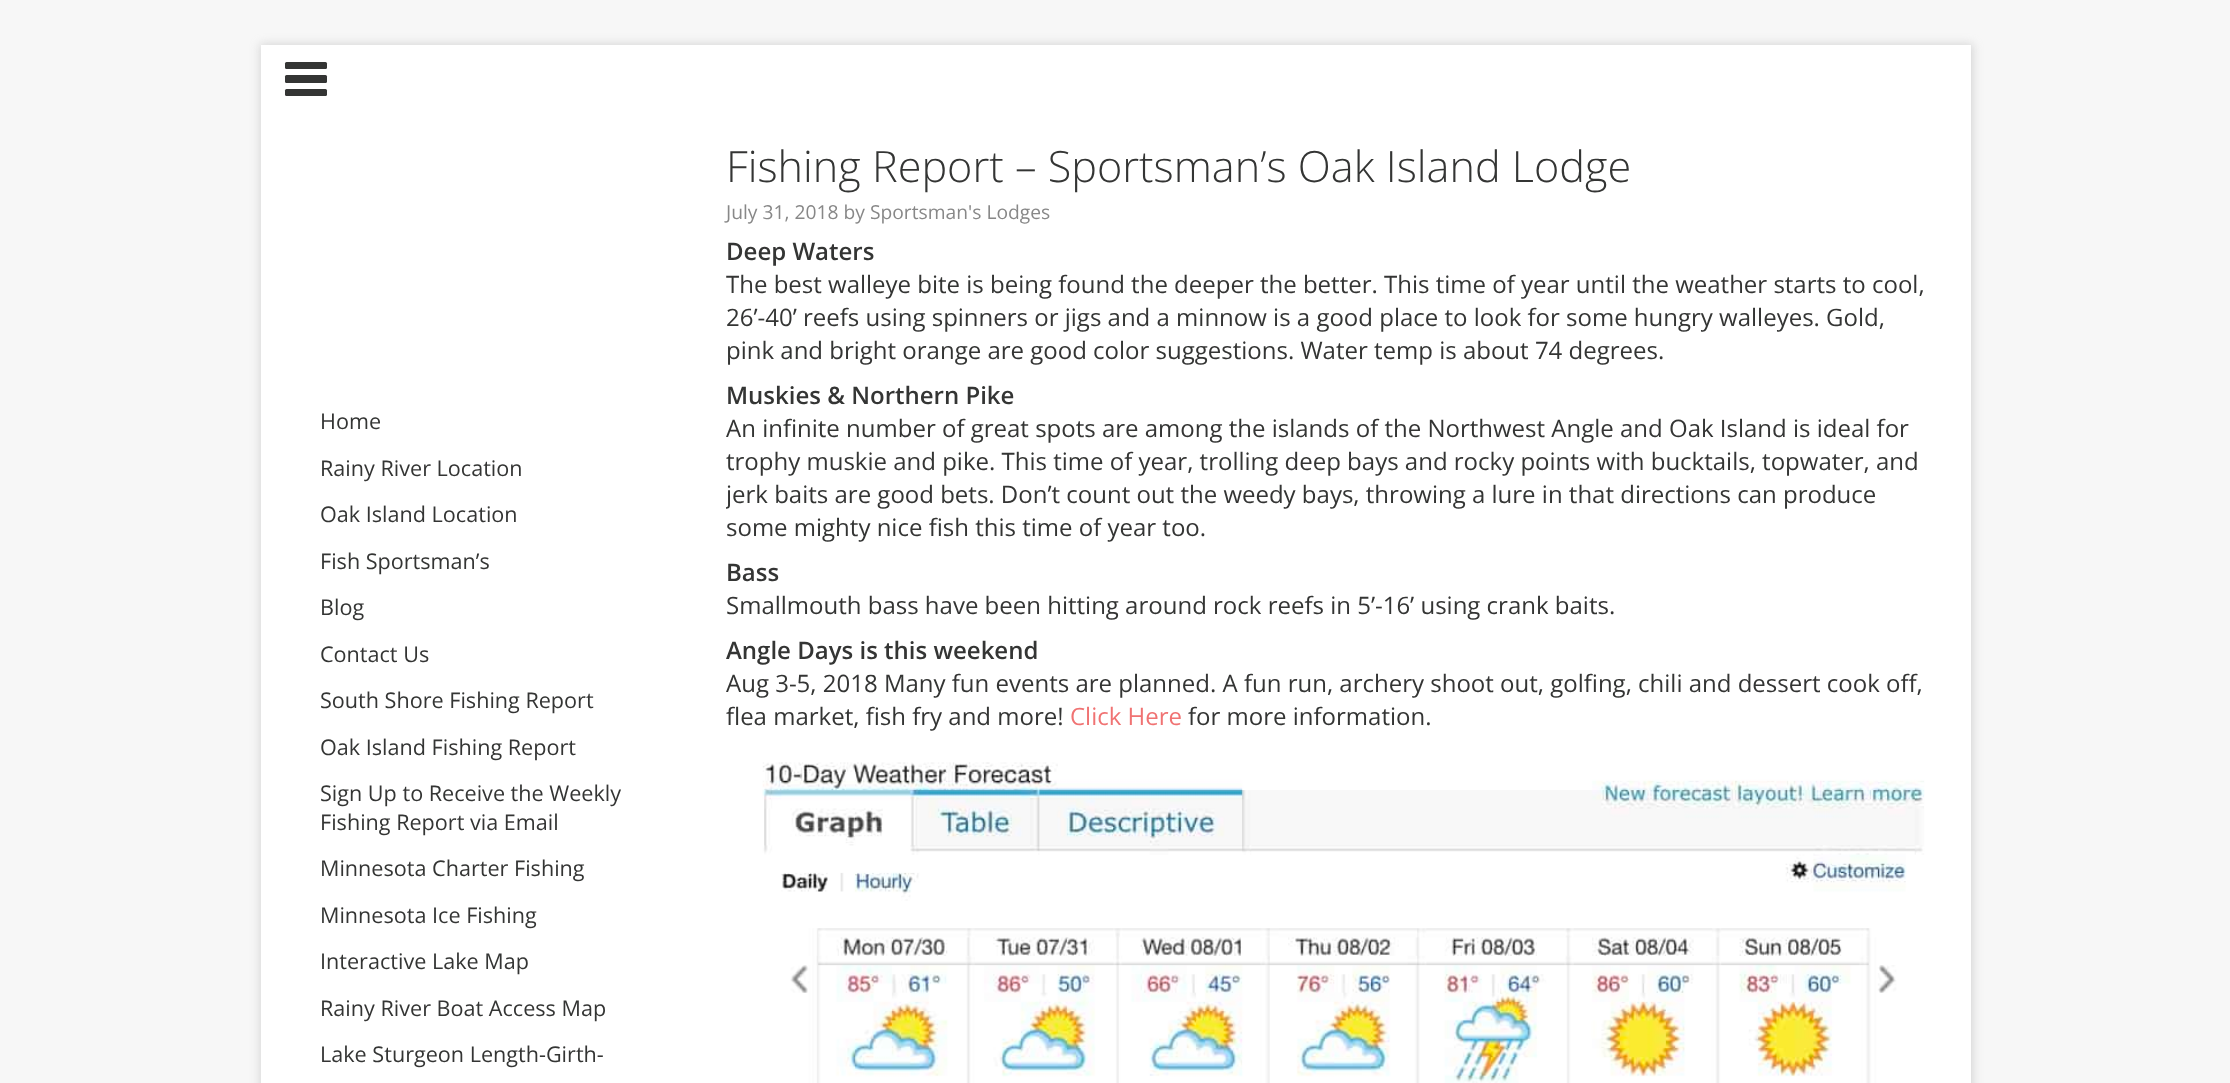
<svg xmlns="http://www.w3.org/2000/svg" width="2230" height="1083">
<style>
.a{font:21.6px Open Sans;fill:#343534}
.b{font:300 43.2px Open Sans;fill:#343534}
.c{font:19.25px Open Sans;fill:#888}
.d{font:600 24px Open Sans;fill:#343534}
.e{font:24px Open Sans;fill:#343534}
.f{font:24px Open Sans;fill:#f07373}
</style>
<defs>
<clipPath id="clip1"><path d="M726 234h1206v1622H726z"/></clipPath>
</defs>
<rect width="100%" height="100%" fill="#f7f7f7"/>
<path fill="#b3b3b380" filter="blur(5px)" d="M260 44h1713v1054H260z"/>
<path fill="#fff" d="M261 45h1710v1038H261z"/>
<rect fill="#343534" x="285" y="62" width="42" height="7" rx="1.5"/>
<rect fill="#343534" x="285" y="75" width="42" height="8" rx="1.5"/>
<rect fill="#343534" x="285" y="89" width="42" height="7" rx="1.5"/>
<image href="1.png" x="762" y="762" width="1163" height="321"/>
<text class="a" x="320" y="429">Home</text>
<text class="a" x="320" y="476">Rainy River Location</text>
<text class="a" x="320" y="522">Oak Island Location</text>
<text class="a" x="320" y="569">Fish Sportsman’s</text>
<text class="a" x="320" y="615">Blog</text>
<text class="a" x="320" y="662">Contact Us</text>
<text class="a" x="320" y="708">South Shore Fishing Report</text>
<text class="a" x="320" y="755">Oak Island Fishing Report</text>
<text class="a" x="320" y="801">Sign Up to Receive the Weekly</text>
<text class="a" x="320" y="830">Fishing Report via Email</text>
<text class="a" x="320" y="876">Minnesota Charter Fishing</text>
<text class="a" x="320" y="923">Minnesota Ice Fishing</text>
<text class="a" x="320" y="969">Interactive Lake Map</text>
<text class="a" x="320" y="1016">Rainy River Boat Access Map</text>
<text class="a" x="320" y="1062">Lake Sturgeon Length-Girth-</text>
<text class="b" x="726" y="182">Fishing Report – Sportsman’s Oak Island Lodge</text>
<text class="c" x="726" y="219">July 31, 2018 by Sportsman's Lodges</text>
<text class="d" x="726" y="260">Deep Waters</text>
<text class="e" x="726" y="293">The best walleye bite is being found the deeper the better. This time of year until the weather starts to cool,</text>
<text class="e" x="726" y="326">26’-40’ reefs using spinners or jigs and a minnow is a good place to look for some hungry walleyes. Gold,</text>
<text class="e" x="726" y="359">pink and bright orange are good color suggestions. Water temp is about 74 degrees.</text>
<text class="d" x="726" y="404">Muskies &amp; Northern Pike</text>
<text class="e" x="726" y="437">An infinite number of great spots are among the islands of the Northwest Angle and Oak Island is ideal for</text>
<text class="e" x="726" y="470">trophy muskie and pike. This time of year, trolling deep bays and rocky points with bucktails, topwater, and</text>
<g clip-path="url(#clip1)">
<text class="e" x="726" y="503">jerk baits are good bets. Don’t count out the weedy bays, throwing a lure in that directions can produce</text>
</g>
<text class="e" x="726" y="536">some mighty nice fish this time of year too.</text>
<text class="d" x="726" y="581">Bass</text>
<text class="e" x="726" y="614">Smallmouth bass have been hitting around rock reefs in 5’-16’ using crank baits.</text>
<text class="d" x="726" y="659">Angle Days is this weekend</text>
<text class="e" x="726" y="692">Aug 3-5, 2018 Many fun events are planned. A fun run, archery shoot out, golfing, chili and dessert cook off,</text>
<text class="e" x="726" y="725">flea market, fish fry and more!</text>
<text class="f" x="1070" y="725">Click Here</text>
<text class="e" x="1188" y="725">for more information.</text>
</svg>
